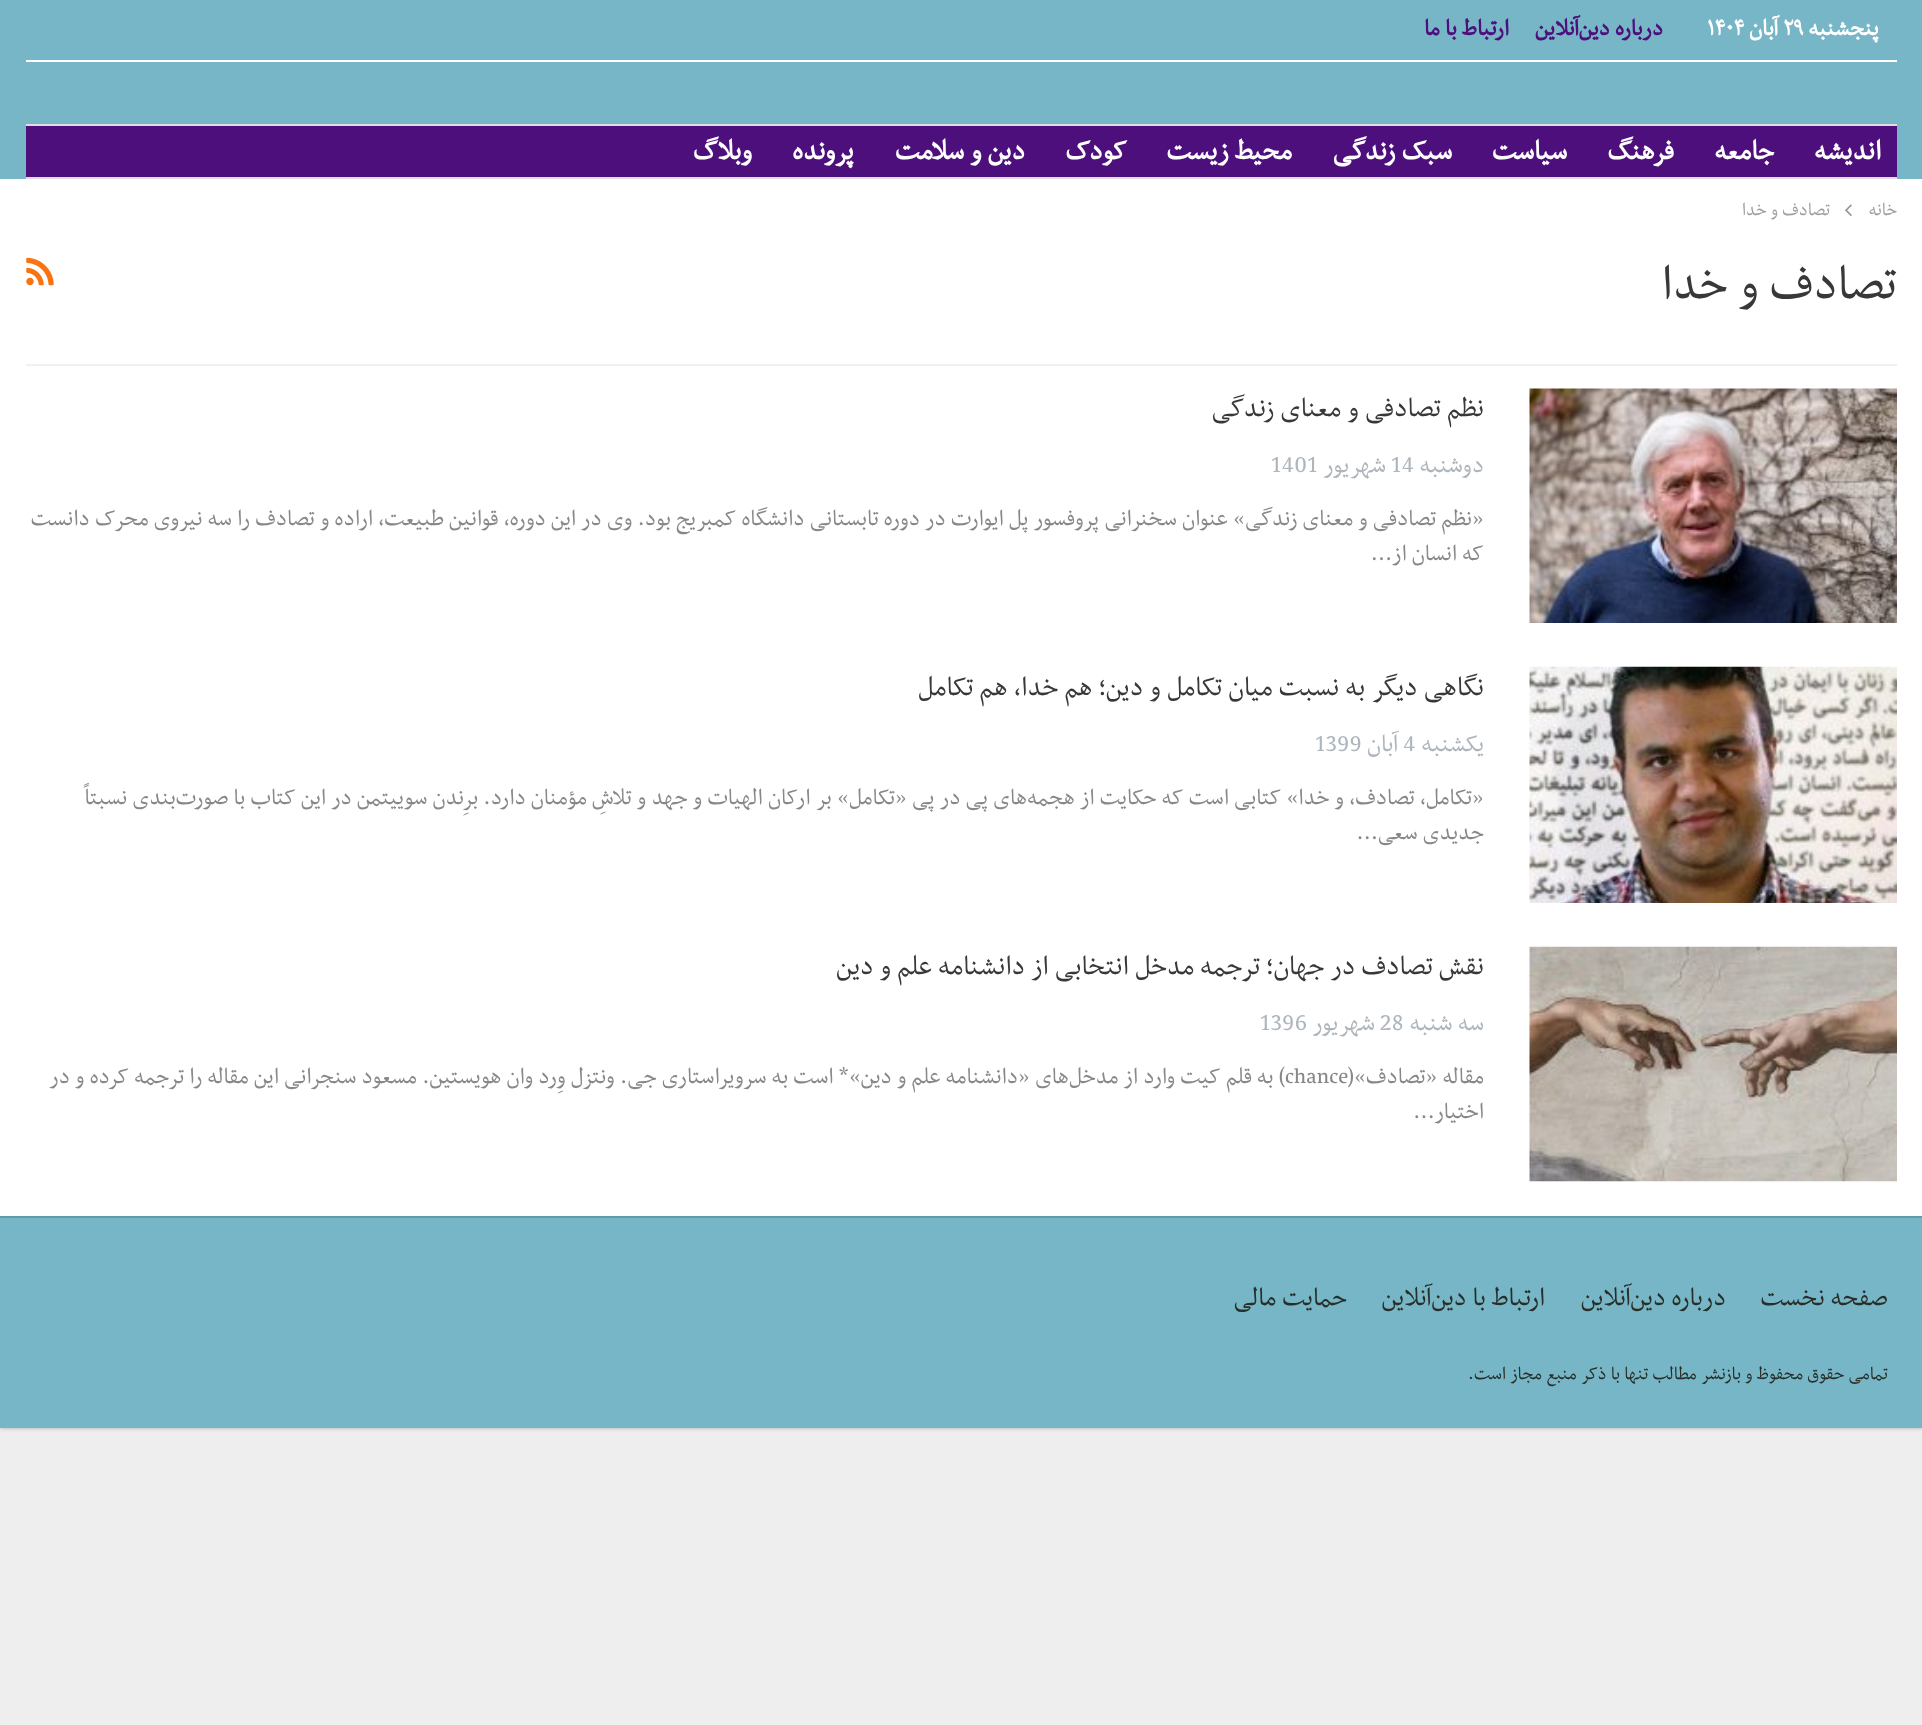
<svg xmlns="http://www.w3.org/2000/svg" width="1922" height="1725">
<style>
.a{font:bold 26.25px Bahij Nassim;direction:rtl;fill:#fff}
.b{font:bold 26.25px Bahij Nassim;fill:#fff}
.c{font:bold 26.25px Bahij Nassim;direction:rtl;fill:#4d0f7b}
.d{font:bold 31.5px Bahij Nassim;direction:rtl;fill:#fff}
.e{font:21px Bahij Nassim;direction:rtl;fill:#9e9e9e}
.f{font:56px Bahij Nassim;direction:rtl;fill:#383838}
.g{font:31.5px Bahij Nassim;direction:rtl;fill:#383838}
.h{font:28px Bahij Nassim;direction:rtl;fill:#adb5bd}
.i{font:28px Bahij Nassim;fill:#adb5bd}
.j{font:26.25px Bahij Nassim;direction:rtl;fill:#888}
.k{font:26.25px Bahij Nassim;fill:#888}
.l{font:29.75px Bahij Nassim;direction:rtl;fill:#282e28}
.m{font:21px Bahij Nassim;direction:rtl;fill:#282e28}
</style>
<rect width="100%" height="100%" fill="#eee"/>
<path fill="#00000045" filter="blur(2px)" d="M0 0h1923v1428H0z"/>
<path fill="#fff" d="M0 179h1922v1037H0z"/>
<path fill="#76b6c7" d="M0 0h1922v179H0z"/>
<path fill="#fff" d="M26 60h1871v2H26z"/>
<path fill="#4d0f7b" d="M26 126h1871v51H26z"/>
<path fill="#dedede" d="M26 124h1871v2H26z"/>
<path fill="#dedede" d="M26 177h1871v2H26z"/>
<image href="1.png" x="1845" y="204" width="7" height="12"/>
<path fill="#f0f0f0" d="M26 364h1871v2H26z"/>
<image href="2.png" x="26" y="257" width="28" height="29"/>
<image href="3.png" x="1529" y="388" width="368" height="235"/>
<image href="4.png" x="1529" y="666" width="368" height="237"/>
<image href="5.png" x="1529" y="946" width="368" height="236"/>
<path fill="#76b6c7" d="M0 1218h1922v210H0z"/>
<path fill="#649ba9" d="M0 1216h1922v2H0z"/>
<text class="a" x="1879" y="35">پنجشنبه</text>
<text class="b" x="1783" y="35">۲۹</text>
<text class="a" x="1778" y="35">آبان</text>
<text class="b" x="1707" y="35">۱۴۰۴</text>
<text class="c" x="1663" y="35">درباره دین‌آنلاین</text>
<text class="c" x="1509" y="35">ارتباط با ما</text>
<text class="d" x="1881" y="159">اندیشه</text>
<text class="d" x="1774" y="159">جامعه</text>
<text class="d" x="1674" y="159">فرهنگ</text>
<text class="d" x="1567" y="159">سیاست</text>
<text class="d" x="1452" y="159">سبک زندگی</text>
<text class="d" x="1292" y="159">محیط زیست</text>
<text class="d" x="1127" y="159">کودک</text>
<text class="d" x="1025" y="159">دین و سلامت</text>
<text class="d" x="854" y="159">پرونده</text>
<text class="d" x="752" y="159">وبلاگ</text>
<text class="e" x="1897" y="215">خانه</text>
<text class="e" x="1830" y="215">تصادف و خدا</text>
<text class="f" x="1897" y="298">تصادف و خدا</text>
<text class="g" x="1484" y="416">نظم تصادفی و معنای زندگی</text>
<text class="h" x="1484" y="472">دوشنبه</text>
<text class="i" x="1391" y="472">14</text>
<text class="h" x="1386" y="472">شهریور</text>
<text class="i" x="1271" y="472">1401</text>
<text class="j" x="1484" y="525">«نظم تصادفی و معنای زندگی» عنوان سخنرانی پروفسور پل ایوارت در دوره تابستانی دانشگاه کمبریج بود. وی در این دوره، قوانین طبیعت، اراده و تصادف را سه نیروی محرک دانست</text>
<text class="j" x="1484" y="560">که انسان از…</text>
<text class="g" x="1484" y="695">نگاهی دیگر به نسبت میان تکامل و دین؛ هم خدا، هم تکامل</text>
<text class="h" x="1484" y="751">یکشنبه</text>
<text class="i" x="1403" y="751">4</text>
<text class="h" x="1398" y="751">آبان</text>
<text class="i" x="1315" y="751">1399</text>
<text class="j" x="1484" y="804">«تکامل، تصادف، و خدا» کتابی است که حکایت از هجمه‌های پی در پی «تکامل» بر ارکان الهیات و جهد و تلاشِ مؤمنان دارد. برِندن سوییتمن در این کتاب با صورت‌بندی نسبتاً</text>
<text class="j" x="1484" y="839">جدیدی سعی…</text>
<text class="g" x="1484" y="974">نقش تصادف در جهان؛ ترجمه مدخل انتخابی از دانشنامه علم و دین</text>
<text class="h" x="1484" y="1030">سه شنبه</text>
<text class="i" x="1380" y="1030">28</text>
<text class="h" x="1375" y="1030">شهریور</text>
<text class="i" x="1260" y="1030">1396</text>
<text class="j" x="1484" y="1083">مقاله «تصادف»(</text>
<text class="k" x="1285" y="1083">chance</text>
<text class="j" x="1285" y="1083">) به قلم کیت وارد از مدخل‌های «دانشنامه علم و دین»* است به سرویراستاری جی. ونتزل وِرد وان هویستین. مسعود سنجرانی این مقاله را ترجمه کرده و در</text>
<text class="j" x="1484" y="1118">اختیار…</text>
<text class="l" x="1888" y="1305">صفحه نخست</text>
<text class="l" x="1726" y="1305">درباره دین‌آنلاین</text>
<text class="l" x="1545" y="1305">ارتباط با دین‌آنلاین</text>
<text class="l" x="1347" y="1305">حمایت مالی</text>
<text class="m" x="1888" y="1379">تمامی حقوق محفوظ و بازنشر مطالب تنها با ذکر منبع مجاز است.</text>
</svg>
